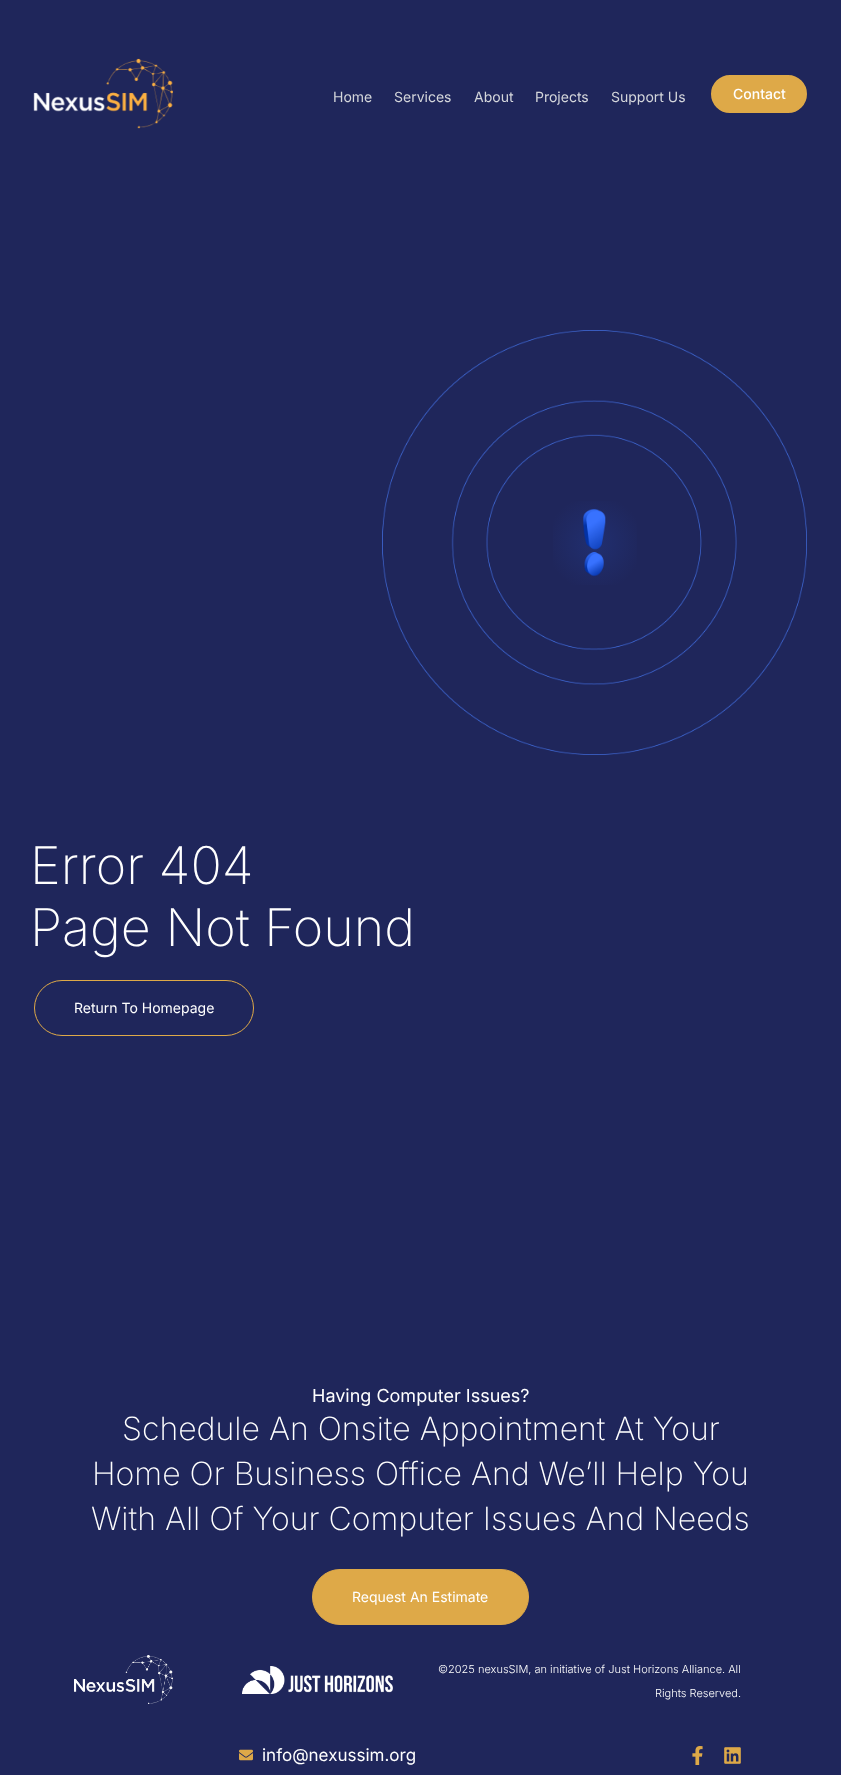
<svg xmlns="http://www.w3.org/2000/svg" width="841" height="1775">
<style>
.a{font:14px Inter;fill:#d4d6db}
.b{font:500 14px Inter;fill:#fff}
.c{font:200 52px Inter;fill:#fff}
.d{font:14px Inter;fill:#fff}
.e{font:18px Inter;fill:#fff}
.f{font:200 32px Inter;fill:#fff}
.g{font:300 11px Inter;fill:#fff}
.h{font:17px Inter;fill:#fff}
</style>
<defs>
<radialGradient id="g1" gradientUnits="userSpaceOnUse" cx="595" cy="543" r="301"><stop offset="0" stop-color="#212f70"/><stop offset="0.16" stop-color="#1f265b"/></radialGradient>
</defs>
<rect width="100%" height="100%" fill="#1f265b"/>
<image href="1.png" x="33" y="58" width="140" height="71"/>
<rect fill="#dea948" stroke="#dea948" stroke-width="2" x="712" y="76" width="94" height="36" rx="18"/>
<path fill="url(#g1)" d="M553 501h84v84H553z"/>
<image href="2.png" x="382" y="330" width="425" height="425"/>
<rect fill="none" stroke="#dea948" x="34.5" y="980.5" width="219" height="55" rx="27.5"/>
<rect fill="#dea948" stroke="#dea948" x="312.5" y="1569.5" width="216" height="55" rx="27.5"/>
<image href="3.png" x="74" y="1655" width="99" height="49"/>
<image href="4.png" x="242" y="1666" width="151" height="28"/>
<image href="5.png" x="239" y="1749" width="14" height="12"/>
<image href="6.png" x="692" y="1746" width="11" height="19"/>
<image href="7.png" x="724" y="1747" width="17" height="17"/>
<text class="a" x="333" y="102">Home</text>
<text class="a" x="394" y="102">Services</text>
<text class="a" x="474" y="102">About</text>
<text class="a" x="535" y="102">Projects</text>
<text class="a" x="611" y="102">Support Us</text>
<text class="b" x="733" y="99">Contact</text>
<text class="c" x="30" y="884">Error 404</text>
<text class="c" x="30" y="946">Page Not Found</text>
<text class="d" x="74" y="1013">Return To Homepage</text>
<text class="e" x="312" y="1402">Having Computer Issues?</text>
<text class="f" x="122" y="1440">Schedule An Onsite Appointment At Your</text>
<text class="f" x="92" y="1485">Home Or Business Office And We’ll Help You</text>
<text class="f" x="91" y="1530">With All Of Your Computer Issues And Needs</text>
<text class="d" x="352" y="1602">Request An Estimate</text>
<text class="g" x="438" y="1673">©2025 nexusSIM, an initiative of Just Horizons Alliance. All</text>
<text class="g" x="655" y="1697">Rights Reserved.</text>
<text class="h" x="262" y="1761">info@nexussim.org</text>
</svg>
